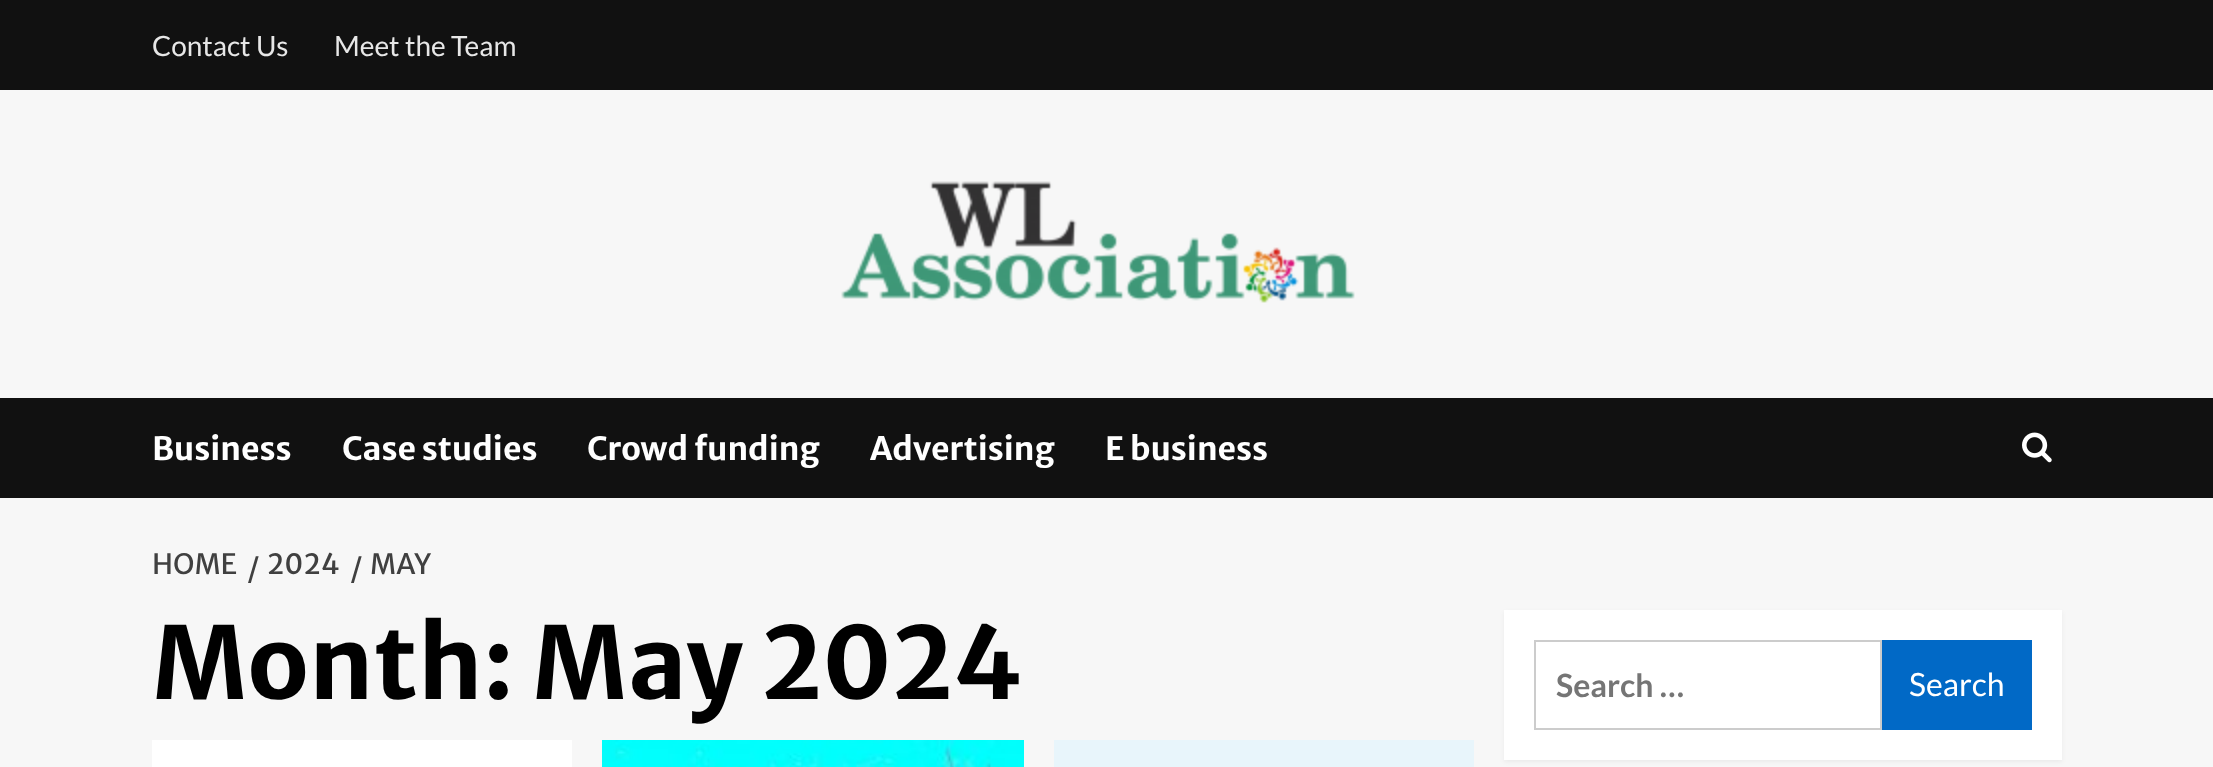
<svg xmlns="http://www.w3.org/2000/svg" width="2213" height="767">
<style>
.a{font:28px Lato;fill:#e7e7e7}
.b{font:bold 32px Merriweather Sans;fill:#fff}
.c{font:28px Merriweather Sans;fill:#404040}
.d{font:bold 100px Merriweather Sans;fill:#000}
.e{font:bold 32px Lato;fill:#757575}
.f{font:32px Lato;fill:#fff}
</style>
<rect width="100%" height="100%" fill="#f7f7f7"/>
<path fill="#111" d="M0 0h2213v90H0z"/>
<image href="1.png" x="841" y="181" width="514" height="122"/>
<path fill="#111" d="M0 398h2213v100H0z"/>
<image href="2.png" x="2022" y="432" width="30" height="31"/>
<path fill="#fff" d="M152 740h420v27H152z"/>
<image href="3.png" x="602" y="740" width="422" height="27"/>
<path fill="#e8f5fb" d="M1054 740h420v27H1054z"/>
<path fill="#0000000d" filter="blur(2px)" d="M1504 612h558v150H1504z"/>
<path fill="#fff" d="M1504 610h558v150H1504z"/>
<path fill="none" stroke="#ccc" stroke-width="2" d="M1535 641h346v88H1535z"/>
<path fill="#0169c6" d="M1882 640h150v90H1882z"/>
<text class="a" x="152" y="56">Contact Us</text>
<text class="a" x="334" y="56">Meet the Team</text>
<text class="b" x="152" y="460">Business</text>
<text class="b" x="342" y="460">Case studies</text>
<text class="b" x="587" y="460">Crowd funding</text>
<text class="b" x="870" y="460">Advertising</text>
<text class="b" x="1105" y="460">E business</text>
<text class="c" x="152" y="574">HOME</text>
<text class="c" x="247" y="578">/</text>
<text class="c" x="267" y="574">2024</text>
<text class="c" x="350" y="578">/</text>
<text class="c" x="370" y="574">MAY</text>
<text class="d" x="152" y="699">Month: May 2024</text>
<text class="e" x="1556" y="697">Search …</text>
<text class="f" x="1909" y="696">Search</text>
</svg>
